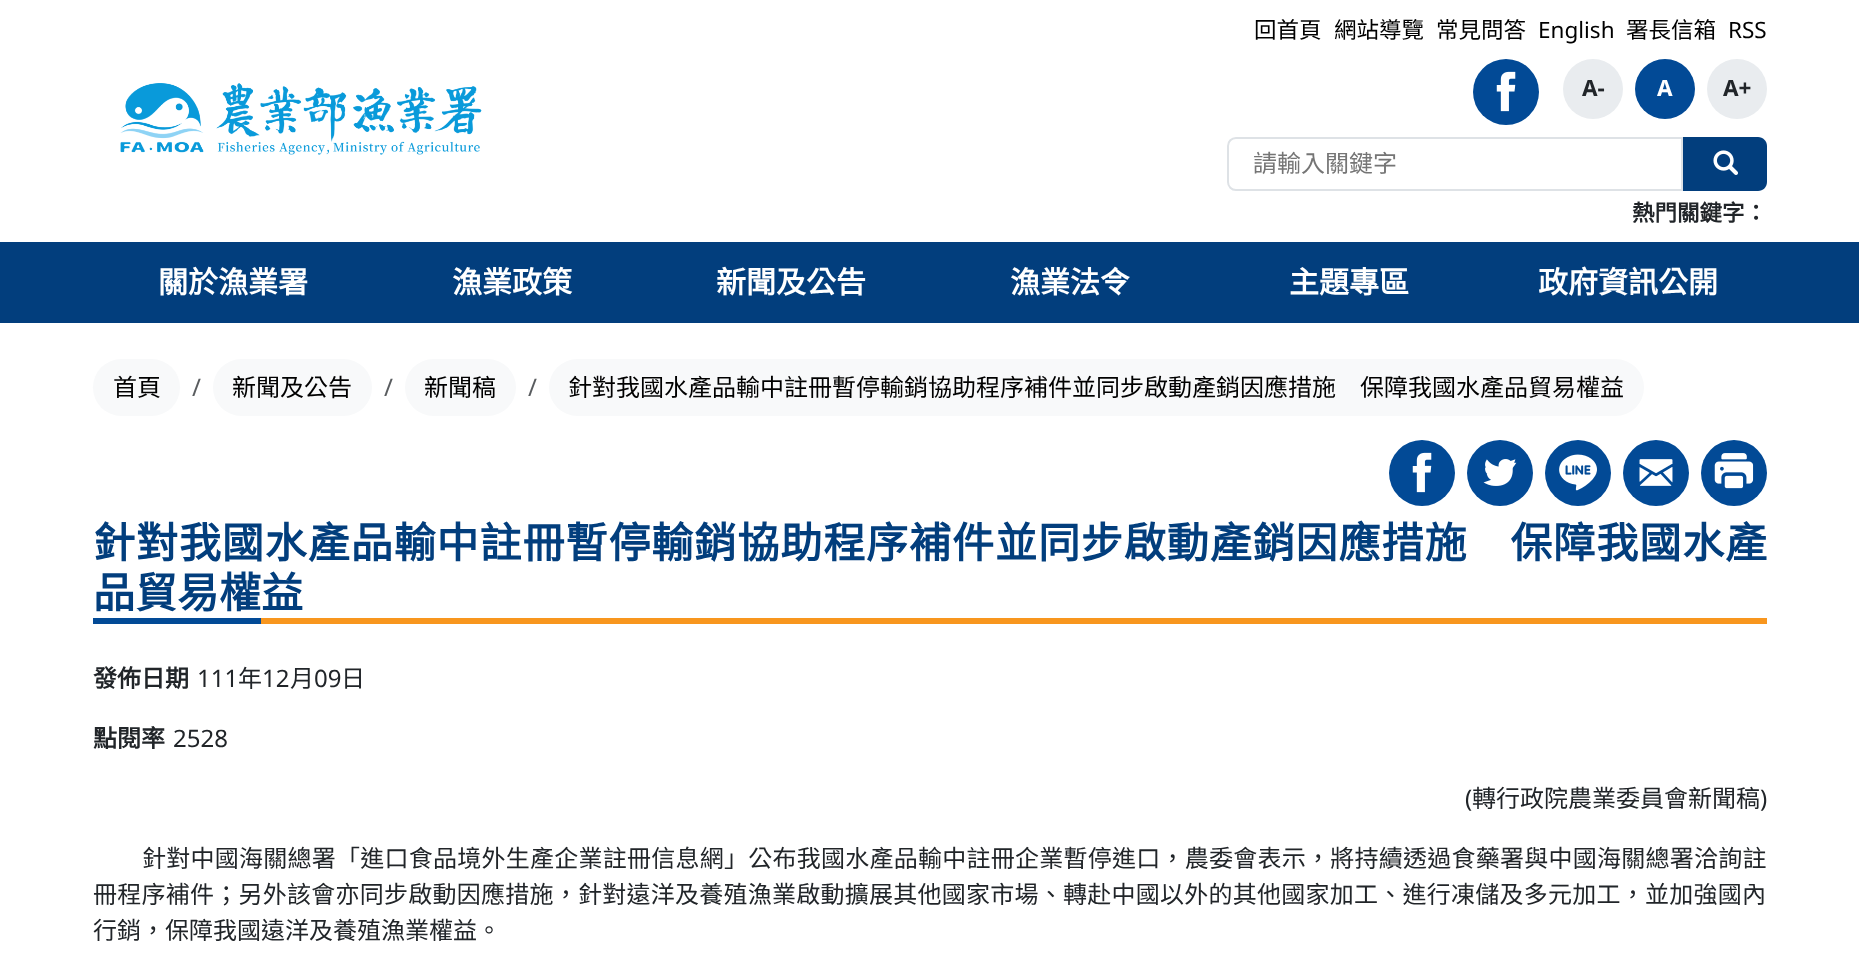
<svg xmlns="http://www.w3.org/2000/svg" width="1859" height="974">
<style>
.a{font:22.5px Noto Sans CJK TC;fill:#000}
.b{font:22.5px Noto Sans;fill:#000}
.c{font:bold 22.5px Noto Sans;fill:#212529}
.d{font:bold 22.5px Noto Sans;fill:#fff}
.e{font:24px Noto Sans CJK TC;fill:#757575}
.f{font:bold 22.5px Noto Sans CJK TC;fill:#212529}
.g{font:bold 30px Noto Sans CJK TC;fill:#fff}
.h{font:24px Noto Sans CJK TC;fill:#000}
.i{font:24px Noto Sans;fill:#595c5f}
.j{font:bold 42px Noto Sans CJK TC;letter-spacing:0.95px;fill:#023e7d}
.k{font:bold 42px Noto Sans CJK TC;fill:#023e7d}
.l{font:bold 24px Noto Sans CJK TC;fill:#212529}
.m{font:24px Noto Sans;fill:#212529}
.n{font:24px Noto Sans CJK TC;fill:#212529}
.o{font:24px Noto Sans CJK TC;letter-spacing:0.25px;fill:#212529}
</style>
<rect width="100%" height="100%" fill="#fff"/>
<image href="1.png" x="120" y="83" width="362" height="72"/>
<circle fill="#024a96" cx="1506" cy="92" r="33"/>
<image href="2.png" x="1496" y="71" width="20" height="41"/>
<circle fill="#e9ecef" cx="1593" cy="89" r="30"/>
<circle fill="#024a96" cx="1665" cy="89" r="30"/>
<circle fill="#e9ecef" cx="1737" cy="89" r="30"/>
<path fill="none" stroke="#dee2e6" stroke-width="2" d="M1236 138h446v52h-446c-4.5 0-8-3.5-8-8v-36c0-4.5 3.5-8 8-8z"/>
<path fill="#023e7d" d="M1683 137h75c5 0 9 4 9 9v36c0 5-4 9-9 9h-75z"/>
<image href="3.png" x="1713" y="150" width="25" height="25"/>
<path fill="#023e7d" d="M0 242h1859v81H0z"/>
<rect fill="#f8f9fa" x="93" y="359" width="87" height="57" rx="28.5"/>
<rect fill="#f8f9fa" x="213" y="359" width="159" height="57" rx="28.5"/>
<rect fill="#f8f9fa" x="405" y="359" width="111" height="57" rx="28.5"/>
<rect fill="#f8f9fa" x="549" y="359" width="1095" height="57" rx="28.5"/>
<circle fill="#024a96" cx="1422" cy="473" r="33"/>
<image href="2.png" x="1412" y="452" width="20" height="41"/>
<circle fill="#024a96" cx="1500" cy="473" r="33"/>
<image href="4.png" x="1483" y="459" width="34" height="27"/>
<circle fill="#024a96" cx="1578" cy="473" r="33"/>
<image href="5.png" x="1559" y="454" width="38" height="37"/>
<circle fill="#024a96" cx="1656" cy="473" r="33"/>
<image href="6.png" x="1639" y="459" width="34" height="27"/>
<circle fill="#024a96" cx="1734" cy="473" r="33"/>
<image href="7.png" x="1714" y="453" width="40" height="36"/>
<path fill="#024a96" d="M93 618h168v6H93z"/>
<path fill="#f8961e" d="M261 618h1506v6H261z"/>
<text class="a" x="1254" y="38">回首頁</text>
<text class="a" x="1334" y="38">網站導覽</text>
<text class="a" x="1436" y="38">常見問答</text>
<text class="b" x="1538" y="38">English</text>
<text class="a" x="1626" y="38">署長信箱</text>
<text class="b" x="1728" y="38">RSS</text>
<text class="c" x="1582" y="96">A-</text>
<text class="d" x="1657" y="96">A</text>
<text class="c" x="1723" y="96">A+</text>
<text class="e" x="1253" y="172">請輸入關鍵字</text>
<text class="f" x="1632" y="221">熱門關鍵字：</text>
<text class="g" x="158" y="293">關於漁業署</text>
<text class="g" x="452" y="293">漁業政策</text>
<text class="g" x="716" y="293">新聞及公告</text>
<text class="g" x="1010" y="293">漁業法令</text>
<text class="g" x="1289" y="293">主題專區</text>
<text class="g" x="1538" y="293">政府資訊公開</text>
<text class="h" x="113" y="396">首頁</text>
<text class="i" x="192" y="396">/</text>
<text class="h" x="232" y="396">新聞及公告</text>
<text class="i" x="384" y="396">/</text>
<text class="h" x="424" y="396">新聞稿</text>
<text class="i" x="528" y="396">/</text>
<text class="h" x="568" y="396">針對我國水產品輸中註冊暫停輸銷協助程序補件並同步啟動產銷因應措施　保障我國水產品貿易權益</text>
<text class="j" x="93" y="558">針對我國水產品輸中註冊暫停輸銷協助程序補件並同步啟動產銷因應措施　保障我國水產</text>
<text class="k" x="93" y="608">品貿易權益</text>
<text class="l" x="93" y="687">發佈日期</text>
<text class="m" x="197" y="687">111</text>
<text class="n" x="238" y="687">年</text>
<text class="m" x="262" y="687">12</text>
<text class="n" x="290" y="687">月</text>
<text class="m" x="314" y="687">09</text>
<text class="n" x="341" y="687">日</text>
<text class="l" x="93" y="747">點閱率</text>
<text class="m" x="173" y="747">2528</text>
<text class="m" x="1465" y="807">(</text>
<text class="n" x="1472" y="807">轉行政院農業委員會新聞稿</text>
<text class="m" x="1760" y="807">)</text>
<text class="o" x="142" y="867">針對中國海關總署「進口食品境外生產企業註冊信息網」公布我國水產品輸中註冊企業暫停進口，農委會表示，將持續透過食藥署與中國海關總署洽詢註</text>
<text class="o" x="93" y="903">冊程序補件；另外該會亦同步啟動因應措施，針對遠洋及養殖漁業啟動擴展其他國家市場、轉赴中國以外的其他國家加工、進行凍儲及多元加工，並加強國內</text>
<text class="n" x="93" y="939">行銷，保障我國遠洋及養殖漁業權益。</text>
</svg>
